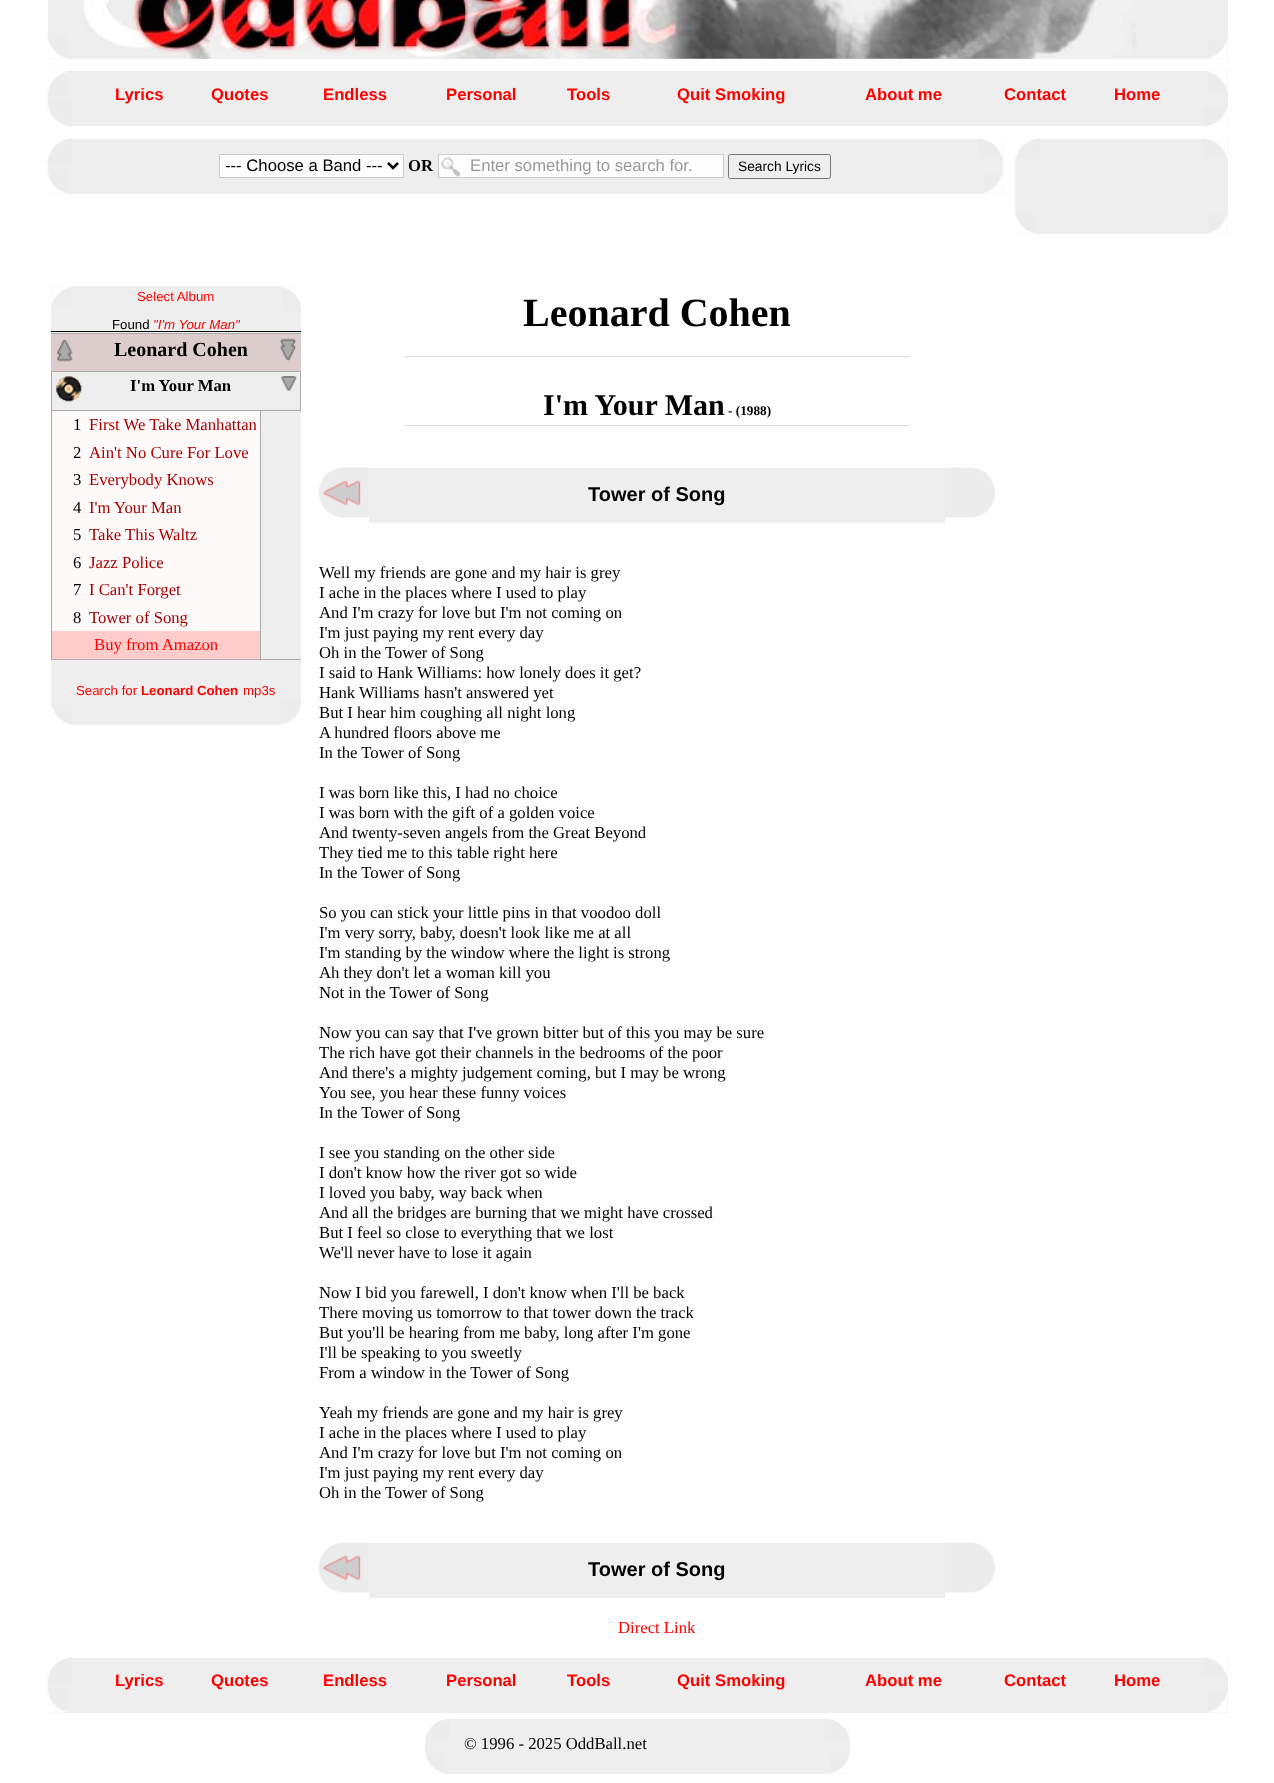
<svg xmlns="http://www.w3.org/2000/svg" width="1274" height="1783">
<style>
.a{font:bold 16.7px Liberation Sans;fill:#f00}
.b{font:16.7px Liberation Sans;fill:#000}
.c{font:bold 16.7px Liberation Serif;fill:#000}
.d{font:16.7px Liberation Sans;fill:#999}
.e{font:13.75px Liberation Sans;fill:#000}
.f{font:13.25px Liberation Sans;fill:#f00}
.g{font:13.25px Liberation Sans;fill:#000}
.h{font:italic 13.25px Liberation Sans;fill:#f00}
.i{font:bold 20px Liberation Serif;fill:#000}
.j{font:16.7px Liberation Serif;fill:#000}
.k{font:16.7px Liberation Serif;fill:#a00}
.l{font:16.7px Liberation Serif;fill:#f00}
.m{font:bold 13.25px Liberation Sans;fill:#f00}
.n{font:bold 40px Liberation Serif;fill:#000}
.o{font:bold 30px Liberation Serif;fill:#000}
.p{font:bold 13.25px Liberation Serif;fill:#000}
.q{font:bold 20px Liberation Sans;fill:#000}
</style>
<rect width="100%" height="100%" fill="#fff"/>
<path fill="#eee" d="M48 0h25v59H48z"/>
<path fill="#eee" d="M1203 0h25v59H1203z"/>
<path fill="#eee" d="M73 0h1130v59H73z"/>
<image href="1.png" x="73" y="0" width="1064" height="59"/>
<image href="2.png" x="47" y="34" width="20" height="25"/>
<image href="3.png" x="1208" y="39" width="20" height="20"/>
<path fill="#eee" d="M48 71h45v55H48z"/>
<image href="4.png" x="47" y="71" width="20" height="25"/>
<path fill="#eee" d="M93 71h1090v55H93z"/>
<path fill="#eee" d="M1183 71h45v55H1183z"/>
<image href="5.png" x="1208" y="71" width="20" height="20"/>
<image href="6.png" x="47" y="101" width="25" height="26"/>
<image href="7.png" x="1203" y="107" width="25" height="20"/>
<path fill="#eee" d="M48 139h36v55H48z"/>
<image href="8.png" x="47" y="138" width="25" height="26"/>
<path fill="#eee" d="M84 139h882v55H84z"/>
<path fill="#fdfdfd" stroke="#ccc" d="M219.5 154.5h184v23H219.5z"/>
<path fill="none" stroke="#000" stroke-width="2.5" d="M388 163l5 5l5-5"/>
<path fill="#fdfdfd" d="M439 155h284v22H439z"/>
<image href="9.png" x="441" y="157" width="20" height="20"/>
<path fill="none" stroke="#ccc" d="M438.5 154.5h285v23H438.5z"/>
<rect fill="none" stroke="#767676" x="728.5" y="154.5" width="102" height="24" rx="2"/>
<path fill="#eee" d="M966 139h37v55H966z"/>
<image href="10.png" x="978" y="138" width="25" height="20"/>
<image href="2.png" x="47" y="169" width="20" height="25"/>
<image href="11.png" x="983" y="174" width="20" height="20"/>
<path fill="#eee" d="M51 286h250v414H51z"/>
<image href="12.png" x="51" y="286" width="20" height="20"/>
<image href="13.png" x="282" y="286" width="20" height="25"/>
<path fill="#000" d="M51 331h250v1H51z"/>
<path fill="#dcc" d="M51 334h250v37H51z"/>
<path fill="#aaa" d="M51 333h250v1H51z"/>
<image href="14.png" x="56" y="339" width="17" height="23"/>
<image href="15.png" x="280" y="338" width="16" height="23"/>
<path fill="#aaa" d="M51 371h250v1H51z"/>
<path fill="#aaa" d="M51 410h218v1H51z"/>
<path fill="#aaa" d="M51 371h1v288H51z"/>
<image href="16.png" x="56" y="376" width="26" height="26"/>
<path fill="#aaa" d="M300 371h1v40H300z"/>
<path fill="#aaa" d="M269 410h32v1H269z"/>
<image href="17.png" x="281" y="376" width="16" height="16"/>
<path fill="#fffafa" d="M52 411h208v28H52z"/>
<path fill="#aaa" d="M260 411h1v248H260z"/>
<path fill="#fffafa" d="M52 439h208v27H52z"/>
<path fill="#fffafa" d="M52 466h208v28H52z"/>
<path fill="#fffafa" d="M52 494h208v27H52z"/>
<path fill="#fffafa" d="M52 521h208v28H52z"/>
<path fill="#fffafa" d="M52 549h208v27H52z"/>
<path fill="#fffafa" d="M52 576h208v28H52z"/>
<path fill="#fffafa" d="M52 604h208v27H52z"/>
<path fill="#fcc" d="M52 631h208v28H52z"/>
<path fill="#aaa" d="M51 659h250v1H51z"/>
<path fill="#eee" d="M51 700h230v25H51z"/>
<image href="18.png" x="51" y="705" width="21" height="20"/>
<image href="19.png" x="281" y="700" width="21" height="25"/>
<path fill="#ddd" d="M404 356h506v1H404z"/>
<path fill="#ddd" d="M404 425h506v1H404z"/>
<image href="20.png" x="318" y="467" width="51" height="51"/>
<path fill="#eee" d="M369 468h576v55H369z"/>
<image href="21.png" x="945" y="467" width="50" height="51"/>
<image href="20.png" x="318" y="1542" width="51" height="51"/>
<path fill="#eee" d="M369 1543h576v55H369z"/>
<image href="21.png" x="945" y="1542" width="50" height="51"/>
<path fill="#eee" d="M1015 139h213v70H1015z"/>
<image href="22.png" x="1015" y="138" width="25" height="21"/>
<image href="23.png" x="1203" y="138" width="25" height="20"/>
<path fill="#eee" d="M1015 209h213v25H1015z"/>
<image href="24.png" x="1015" y="213" width="20" height="21"/>
<image href="3.png" x="1208" y="214" width="20" height="20"/>
<path fill="#eee" d="M48 1658h45v55H48z"/>
<image href="25.png" x="47" y="1657" width="26" height="26"/>
<path fill="#eee" d="M93 1658h1090v55H93z"/>
<path fill="#eee" d="M1183 1658h45v55H1183z"/>
<image href="26.png" x="1202" y="1657" width="26" height="20"/>
<image href="27.png" x="47" y="1687" width="20" height="26"/>
<image href="28.png" x="1208" y="1693" width="20" height="20"/>
<path fill="#eee" d="M425 1739h25v35H425z"/>
<image href="29.png" x="425" y="1718" width="25" height="21"/>
<path fill="#eee" d="M450 1719h375v55H450z"/>
<path fill="#eee" d="M825 1739h25v35H825z"/>
<image href="30.png" x="825" y="1718" width="25" height="21"/>
<image href="31.png" x="425" y="1753" width="20" height="21"/>
<image href="32.png" x="830" y="1753" width="20" height="21"/>
<text class="a" x="115" y="100">Lyrics</text>
<text class="a" x="211" y="100">Quotes</text>
<text class="a" x="323" y="100">Endless</text>
<text class="a" x="446" y="100">Personal</text>
<text class="a" x="567" y="100">Tools</text>
<text class="a" x="677" y="100">Quit Smoking</text>
<text class="a" x="865" y="100">About me</text>
<text class="a" x="1004" y="100">Contact</text>
<text class="a" x="1114" y="100">Home</text>
<text class="b" x="225" y="171">--- Choose a Band ---</text>
<text class="c" x="408" y="171">OR</text>
<text class="d" x="470" y="171">Enter something to search for.</text>
<text class="e" x="738" y="171">Search Lyrics</text>
<text class="f" x="137" y="301">Select Album</text>
<text class="g" x="112" y="329">Found</text>
<text class="h" x="153" y="329">"I'm Your Man"</text>
<text class="i" x="114" y="356">Leonard Cohen</text>
<text class="c" x="130" y="391">I'm Your Man</text>
<text class="j" x="73" y="430">1</text>
<text class="k" x="89" y="430">First We Take Manhattan</text>
<text class="j" x="73" y="458">2</text>
<text class="k" x="89" y="458">Ain't No Cure For Love</text>
<text class="j" x="73" y="485">3</text>
<text class="k" x="89" y="485">Everybody Knows</text>
<text class="j" x="73" y="513">4</text>
<text class="k" x="89" y="513">I'm Your Man</text>
<text class="j" x="73" y="540">5</text>
<text class="k" x="89" y="540">Take This Waltz</text>
<text class="j" x="73" y="568">6</text>
<text class="k" x="89" y="568">Jazz Police</text>
<text class="j" x="73" y="595">7</text>
<text class="k" x="89" y="595">I Can't Forget</text>
<text class="j" x="73" y="623">8</text>
<text class="k" x="89" y="623">Tower of Song</text>
<text class="l" x="94" y="650">Buy from Amazon</text>
<text class="f" x="76" y="695">Search for</text>
<text class="m" x="141" y="695">Leonard Cohen</text>
<text class="f" x="243" y="695">mp3s</text>
<text class="n" x="523" y="326">Leonard Cohen</text>
<text class="o" x="543" y="415">I'm Your Man</text>
<text class="p" x="728" y="415">- (1988)</text>
<text class="q" x="588" y="501">Tower of Song</text>
<text class="j" x="319" y="578">Well my friends are gone and my hair is grey</text>
<text class="j" x="319" y="598">I ache in the places where I used to play</text>
<text class="j" x="319" y="618">And I'm crazy for love but I'm not coming on</text>
<text class="j" x="319" y="638">I'm just paying my rent every day</text>
<text class="j" x="319" y="658">Oh in the Tower of Song</text>
<text class="j" x="319" y="678">I said to Hank Williams: how lonely does it get?</text>
<text class="j" x="319" y="698">Hank Williams hasn't answered yet</text>
<text class="j" x="319" y="718">But I hear him coughing all night long</text>
<text class="j" x="319" y="738">A hundred floors above me</text>
<text class="j" x="319" y="758">In the Tower of Song</text>
<text class="j" x="319" y="798">I was born like this, I had no choice</text>
<text class="j" x="319" y="818">I was born with the gift of a golden voice</text>
<text class="j" x="319" y="838">And twenty-seven angels from the Great Beyond</text>
<text class="j" x="319" y="858">They tied me to this table right here</text>
<text class="j" x="319" y="878">In the Tower of Song</text>
<text class="j" x="319" y="918">So you can stick your little pins in that voodoo doll</text>
<text class="j" x="319" y="938">I'm very sorry, baby, doesn't look like me at all</text>
<text class="j" x="319" y="958">I'm standing by the window where the light is strong</text>
<text class="j" x="319" y="978">Ah they don't let a woman kill you</text>
<text class="j" x="319" y="998">Not in the Tower of Song</text>
<text class="j" x="319" y="1038">Now you can say that I've grown bitter but of this you may be sure</text>
<text class="j" x="319" y="1058">The rich have got their channels in the bedrooms of the poor</text>
<text class="j" x="319" y="1078">And there's a mighty judgement coming, but I may be wrong</text>
<text class="j" x="319" y="1098">You see, you hear these funny voices</text>
<text class="j" x="319" y="1118">In the Tower of Song</text>
<text class="j" x="319" y="1158">I see you standing on the other side</text>
<text class="j" x="319" y="1178">I don't know how the river got so wide</text>
<text class="j" x="319" y="1198">I loved you baby, way back when</text>
<text class="j" x="319" y="1218">And all the bridges are burning that we might have crossed</text>
<text class="j" x="319" y="1238">But I feel so close to everything that we lost</text>
<text class="j" x="319" y="1258">We'll never have to lose it again</text>
<text class="j" x="319" y="1298">Now I bid you farewell, I don't know when I'll be back</text>
<text class="j" x="319" y="1318">There moving us tomorrow to that tower down the track</text>
<text class="j" x="319" y="1338">But you'll be hearing from me baby, long after I'm gone</text>
<text class="j" x="319" y="1358">I'll be speaking to you sweetly</text>
<text class="j" x="319" y="1378">From a window in the Tower of Song</text>
<text class="j" x="319" y="1418">Yeah my friends are gone and my hair is grey</text>
<text class="j" x="319" y="1438">I ache in the places where I used to play</text>
<text class="j" x="319" y="1458">And I'm crazy for love but I'm not coming on</text>
<text class="j" x="319" y="1478">I'm just paying my rent every day</text>
<text class="j" x="319" y="1498">Oh in the Tower of Song</text>
<text class="q" x="588" y="1576">Tower of Song</text>
<text class="l" x="618" y="1633">Direct Link</text>
<text class="a" x="115" y="1686">Lyrics</text>
<text class="a" x="211" y="1686">Quotes</text>
<text class="a" x="323" y="1686">Endless</text>
<text class="a" x="446" y="1686">Personal</text>
<text class="a" x="567" y="1686">Tools</text>
<text class="a" x="677" y="1686">Quit Smoking</text>
<text class="a" x="865" y="1686">About me</text>
<text class="a" x="1004" y="1686">Contact</text>
<text class="a" x="1114" y="1686">Home</text>
<text class="j" x="464" y="1749">© 1996 - 2025 OddBall.net</text>
</svg>
